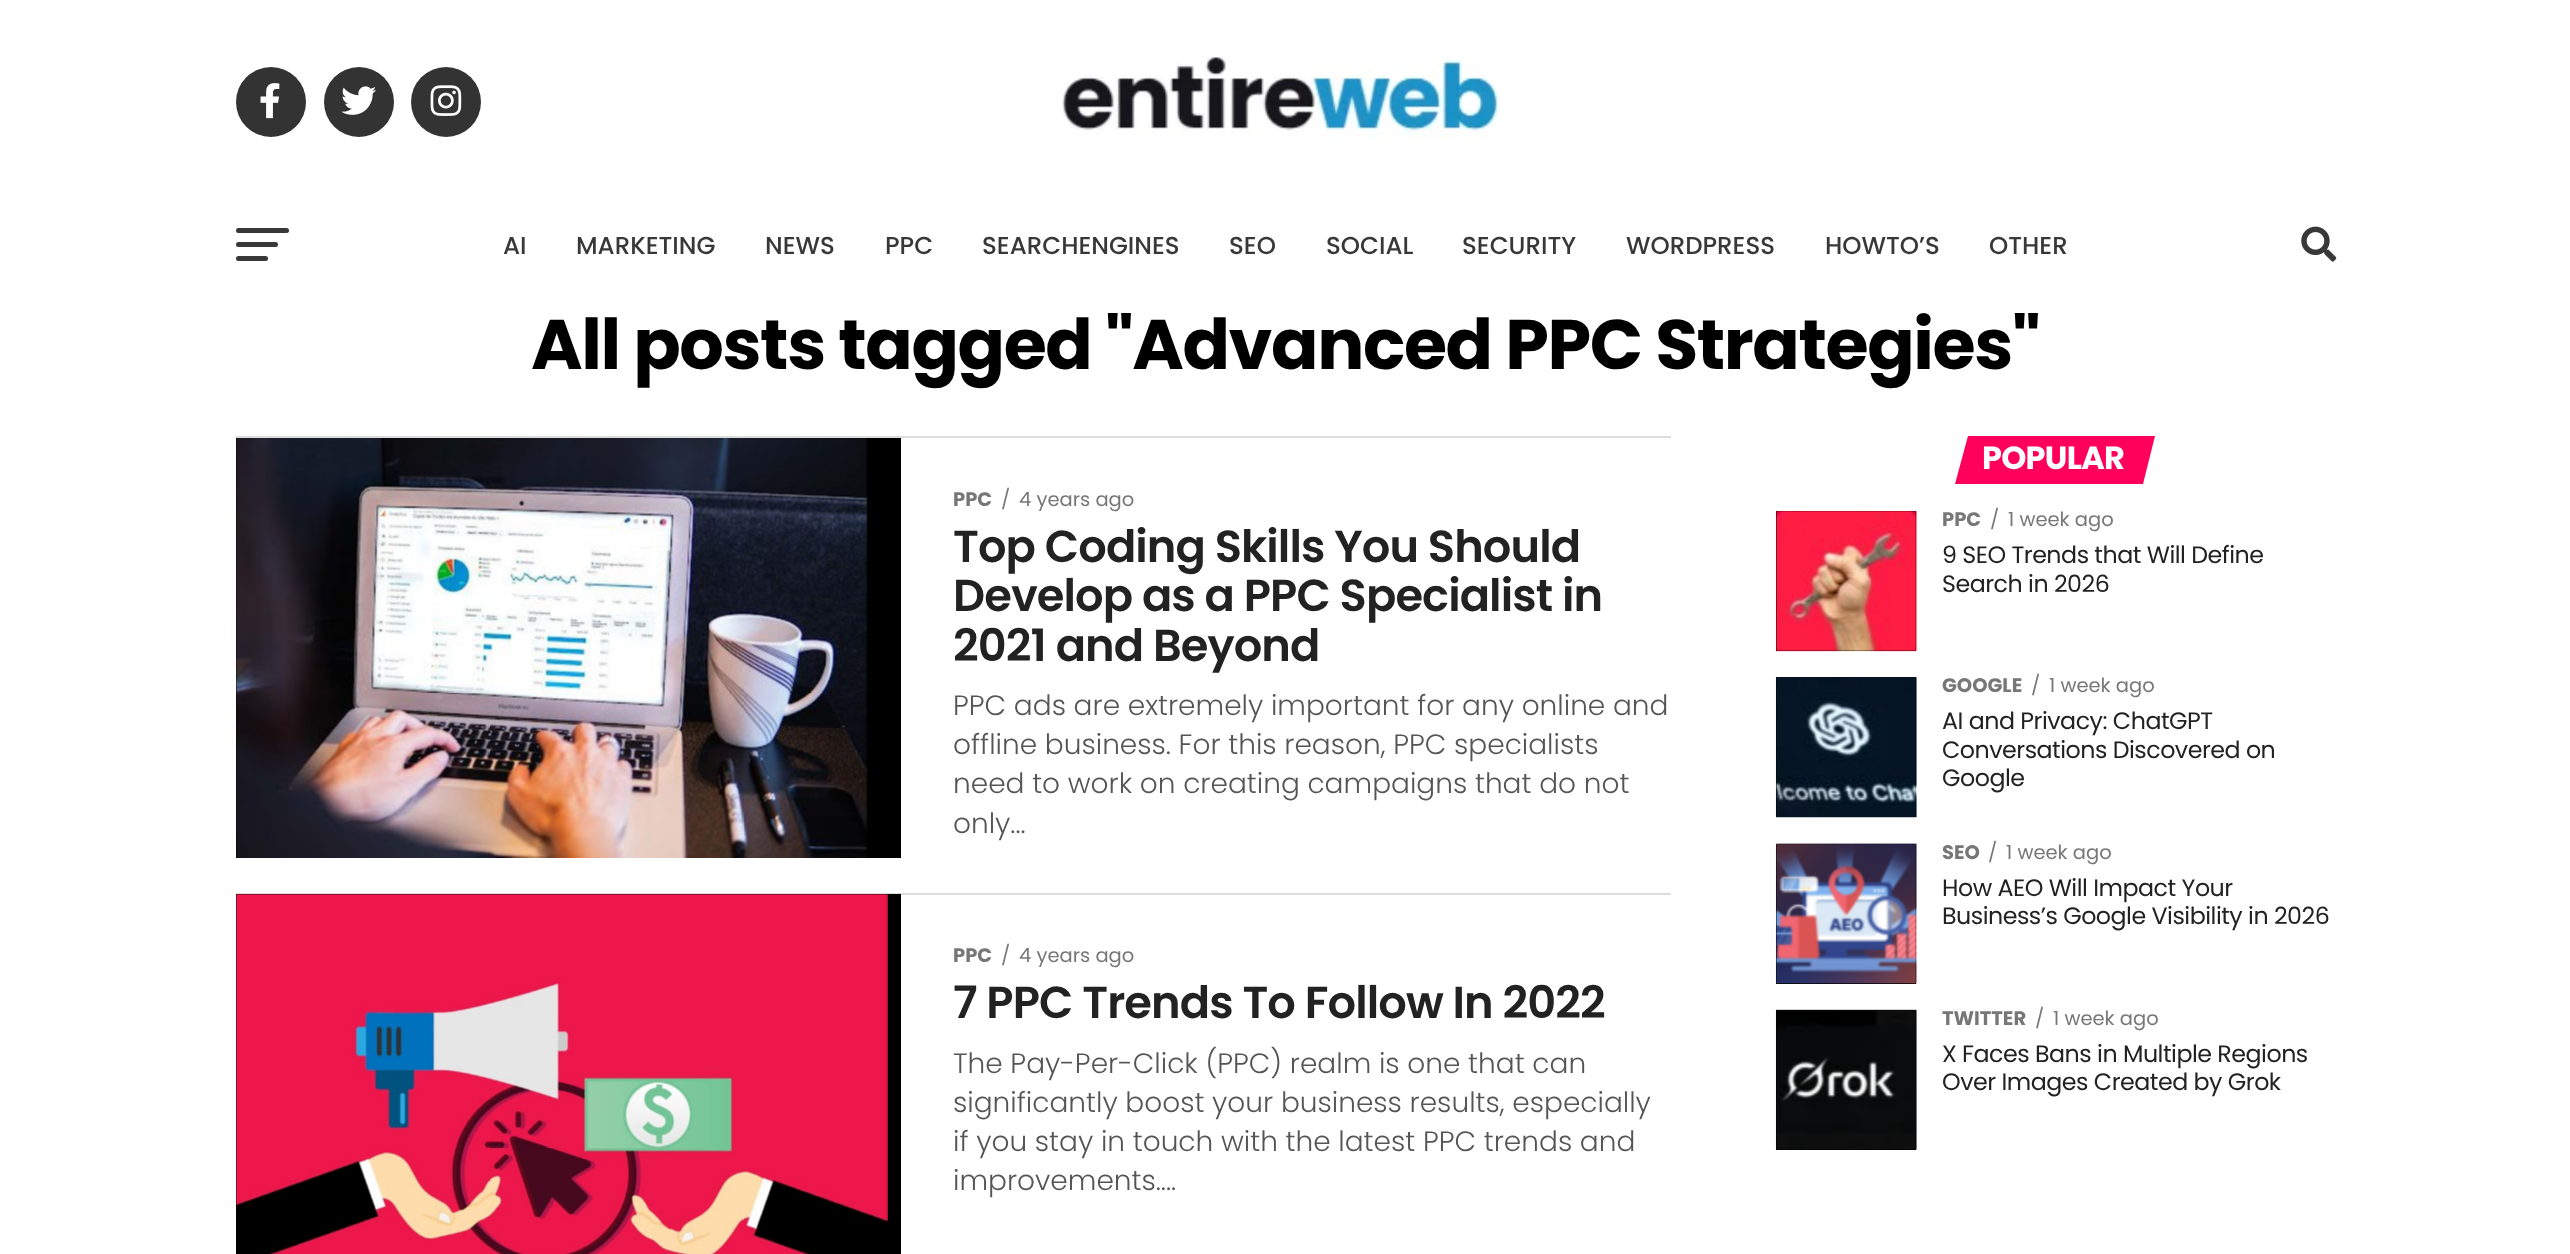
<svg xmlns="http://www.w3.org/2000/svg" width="2570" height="1254">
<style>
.a{font:500 24.5px Poppins;fill:#383838}
.b{font:bold 70px Poppins;letter-spacing:-1.4px;fill:#000}
.c{font:bold 19.5px Poppins;fill:#777}
.d{font:19.5px Poppins;fill:#777}
.e{font:600 44.75px Poppins;letter-spacing:-0.9px;fill:#222}
.f{font:300 28px Poppins;fill:#555}
.g{font:bold 32px Poppins;letter-spacing:-0.75px;fill:#fff}
.h{font:23.75px Poppins;letter-spacing:-0.5px;fill:#222}
</style>
<rect width="100%" height="100%" fill="#fff"/>
<circle fill="#333" cx="271" cy="102" r="35"/>
<image href="1.png" x="260" y="83" width="20" height="36"/>
<circle fill="#333" cx="359" cy="102" r="35"/>
<image href="2.png" x="341" y="86" width="36" height="29"/>
<circle fill="#333" cx="446" cy="102" r="35"/>
<image href="3.png" x="430" y="85" width="32" height="31"/>
<image href="4.png" x="1062" y="56" width="438" height="83"/>
<rect fill="#383838" x="236" y="228" width="53" height="5" rx="2.5"/>
<rect fill="#383838" x="236" y="242" width="42" height="5" rx="2.5"/>
<rect fill="#383838" x="236" y="256" width="32" height="5" rx="2.5"/>
<image href="5.png" x="2301" y="226" width="36" height="36"/>
<path fill="#ddd" d="M236 436h1435v2H236z"/>
<path fill="#000" d="M236 438h665v420H236z"/>
<image href="6.png" x="236" y="438" width="631" height="420"/>
<path fill="#ddd" d="M236 893h1435v2H236z"/>
<path fill="#000" d="M236 894h665v360H236z"/>
<image href="7.png" x="236" y="894" width="652" height="360"/>
<path fill="#ff005b" d="M1968 436h187l-12 48h-188z"/>
<path fill="#000" d="M1776 511h140v140H1776z"/>
<image href="8.png" x="1775" y="510" width="142" height="142"/>
<path fill="#000" d="M1776 677h140v140H1776z"/>
<image href="9.png" x="1775" y="677" width="142" height="141"/>
<path fill="#000" d="M1776 844h140v140H1776z"/>
<image href="10.png" x="1775" y="843" width="142" height="141"/>
<path fill="#000" d="M1776 1010h140v140H1776z"/>
<image href="11.png" x="1775" y="1009" width="142" height="141"/>
<text class="a" x="503" y="254">AI</text>
<text class="a" x="576" y="254">MARKETING</text>
<text class="a" x="765" y="254">NEWS</text>
<text class="a" x="885" y="254">PPC</text>
<text class="a" x="982" y="254">SEARCHENGINES</text>
<text class="a" x="1229" y="254">SEO</text>
<text class="a" x="1326" y="254">SOCIAL</text>
<text class="a" x="1462" y="254">SECURITY</text>
<text class="a" x="1626" y="254">WORDPRESS</text>
<text class="a" x="1825" y="254">HOWTO’S</text>
<text class="a" x="1989" y="254">OTHER</text>
<text class="b" x="531" y="369">All posts tagged "Advanced PPC Strategies"</text>
<text class="c" x="953" y="506">PPC</text>
<text class="d" x="1001" y="506">/</text>
<text class="d" x="1019" y="506">4 years ago</text>
<text class="e" x="953" y="562">Top Coding Skills You Should</text>
<text class="e" x="953" y="611">Develop as a PPC Specialist in</text>
<text class="e" x="953" y="661">2021 and Beyond</text>
<text class="f" x="953" y="715">PPC ads are extremely important for any online and</text>
<text class="f" x="953" y="754">offline business. For this reason, PPC specialists</text>
<text class="f" x="953" y="793">need to work on creating campaigns that do not</text>
<text class="f" x="953" y="833">only...</text>
<text class="c" x="953" y="962">PPC</text>
<text class="d" x="1001" y="962">/</text>
<text class="d" x="1019" y="962">4 years ago</text>
<text class="e" x="953" y="1018">7 PPC Trends To Follow In 2022</text>
<text class="f" x="953" y="1073">The Pay-Per-Click (PPC) realm is one that can</text>
<text class="f" x="953" y="1112">significantly boost your business results, especially</text>
<text class="f" x="953" y="1151">if you stay in touch with the latest PPC trends and</text>
<text class="f" x="953" y="1190">improvements....</text>
<text class="g" x="1982" y="469">POPULAR</text>
<text class="c" x="1942" y="526">PPC</text>
<text class="d" x="1990" y="526">/</text>
<text class="d" x="2008" y="526">1 week ago</text>
<text class="h" x="1942" y="563">9 SEO Trends that Will Define</text>
<text class="h" x="1942" y="592">Search in 2026</text>
<text class="c" x="1942" y="692">GOOGLE</text>
<text class="d" x="2031" y="692">/</text>
<text class="d" x="2049" y="692">1 week ago</text>
<text class="h" x="1942" y="729">AI and Privacy: ChatGPT</text>
<text class="h" x="1942" y="758">Conversations Discovered on</text>
<text class="h" x="1942" y="786">Google</text>
<text class="c" x="1942" y="859">SEO</text>
<text class="d" x="1988" y="859">/</text>
<text class="d" x="2006" y="859">1 week ago</text>
<text class="h" x="1942" y="896">How AEO Will Impact Your</text>
<text class="h" x="1942" y="924">Business’s Google Visibility in 2026</text>
<text class="c" x="1942" y="1025">TWITTER</text>
<text class="d" x="2035" y="1025">/</text>
<text class="d" x="2053" y="1025">1 week ago</text>
<text class="h" x="1942" y="1062">X Faces Bans in Multiple Regions</text>
<text class="h" x="1942" y="1090">Over Images Created by Grok</text>
</svg>
